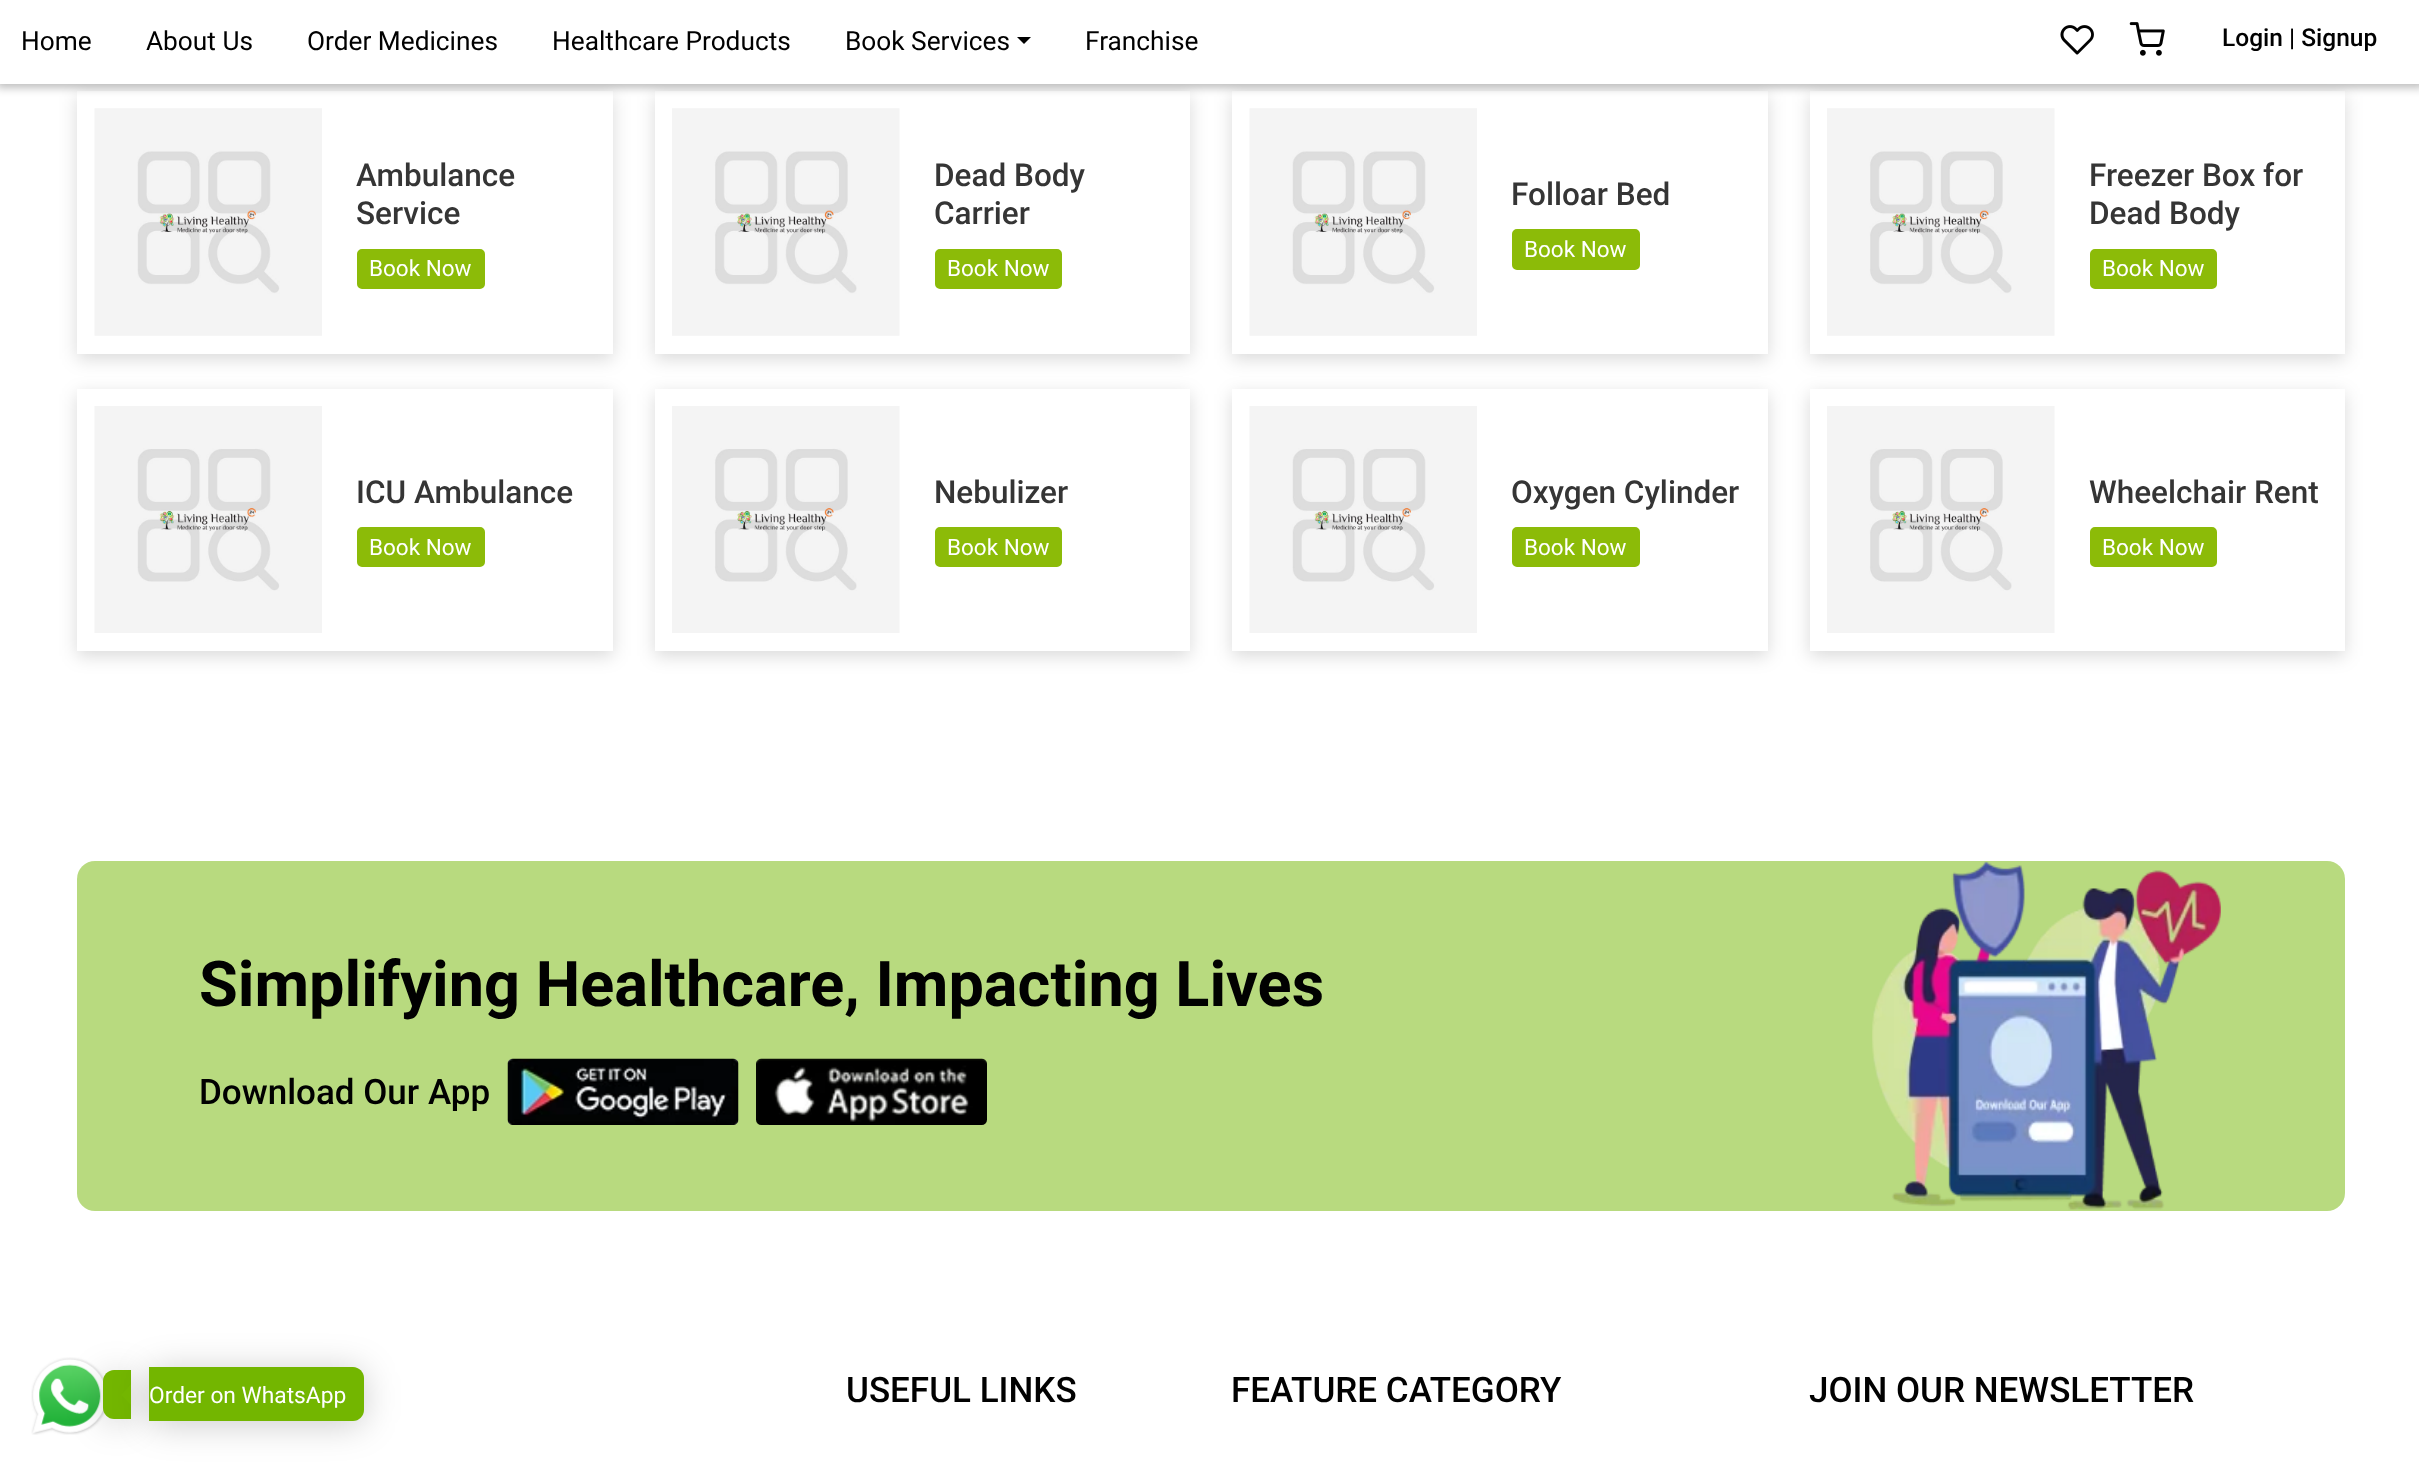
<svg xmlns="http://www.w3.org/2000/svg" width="2419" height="1465">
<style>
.a{font:26.25px Roboto;fill:#010101}
.b{font:500 24.5px Roboto;fill:#010101}
.c{font:500 31.5px Roboto;fill:#353535}
.d{font:22.5px Roboto;fill:#fff}
.e{font:bold 63px Roboto;fill:#010101}
.f{font:500 35px Roboto;fill:#010101}
.g{font:22.75px Roboto;fill:#fff}
</style>
<defs>
<clipPath id="clip1"><path d="M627 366h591v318h-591zm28 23h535v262h-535z" clip-rule="evenodd"/></clipPath>
<clipPath id="clip2"><path d="M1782 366h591v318h-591zm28 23h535v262h-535z" clip-rule="evenodd"/></clipPath>
<linearGradient id="g1" gradientUnits="userSpaceOnUse" x1="-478" y1="1461" x2="922" y2="1461"><stop offset="0.08" stop-color="#73b600"/><stop offset="0.18" stop-color="#8ed810"/><stop offset="0.33" stop-color="#73b600"/></linearGradient>
<linearGradient id="g2" gradientUnits="userSpaceOnUse" x1="-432" y1="1458" x2="968" y2="1458"><stop offset="0.08" stop-color="#73b600"/><stop offset="0.18" stop-color="#8ed810"/><stop offset="0.33" stop-color="#73b600"/></linearGradient>
</defs>
<rect width="100%" height="100%" fill="#fff"/>
<path fill="#00000026" filter="blur(9px)" d="M77 96h536v263H77z"/>
<path fill="#fff" d="M77 91h536v263H77z"/>
<path fill="#00000026" filter="blur(9px)" d="M655 96h535v263H655z"/>
<path fill="#fff" d="M655 91h535v263H655z"/>
<path fill="#00000026" filter="blur(9px)" d="M1232 96h536v263H1232z"/>
<path fill="#fff" d="M1232 91h536v263H1232z"/>
<path fill="#00000026" filter="blur(9px)" d="M1810 96h535v263H1810z"/>
<path fill="#fff" d="M1810 91h535v263H1810z"/>
<path fill="#00000040" filter="blur(4.5px)" d="M-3 -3h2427v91H-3z"/>
<path fill="#fff" d="M0 0h2419v84H0z"/>
<path fill="#010101" d="M1017 37h14l-7 7z"/>
<image href="1.png" x="2060" y="25" width="34" height="30"/>
<image href="2.png" x="2129" y="22" width="36" height="34"/>
<image href="3.png" x="94" y="108" width="228" height="228"/>
<rect fill="#8cbb08" stroke="#8cbb08" stroke-width="2" x="358" y="250" width="126" height="38" rx="4"/>
<image href="4.png" x="672" y="108" width="228" height="228"/>
<rect fill="#8cbb08" stroke="#8cbb08" stroke-width="2" x="936" y="250" width="125" height="38" rx="4"/>
<image href="3.png" x="1249" y="108" width="228" height="228"/>
<rect fill="#8cbb08" stroke="#8cbb08" stroke-width="2" x="1513" y="230" width="126" height="39" rx="4"/>
<image href="5.png" x="1827" y="108" width="228" height="228"/>
<rect fill="#8cbb08" stroke="#8cbb08" stroke-width="2" x="2091" y="250" width="125" height="38" rx="4"/>
<path fill="#00000026" filter="blur(9px)" d="M77 394h536v262H77z"/>
<path fill="#fff" d="M77 389h536v262H77z"/>
<image href="6.png" x="94" y="406" width="228" height="227"/>
<rect fill="#8cbb08" stroke="#8cbb08" stroke-width="2" x="358" y="528" width="126" height="38" rx="4"/>
<g clip-path="url(#clip1)">
<path fill="#00000026" filter="blur(9px)" d="M655 394h535v262H655z"/>
</g>
<image href="7.png" x="672" y="406" width="228" height="227"/>
<rect fill="#8cbb08" stroke="#8cbb08" stroke-width="2" x="936" y="528" width="125" height="38" rx="4"/>
<path fill="#00000026" filter="blur(9px)" d="M1232 394h536v262H1232z"/>
<path fill="#fff" d="M1232 389h536v262H1232z"/>
<image href="6.png" x="1249" y="406" width="228" height="227"/>
<rect fill="#8cbb08" stroke="#8cbb08" stroke-width="2" x="1513" y="528" width="126" height="38" rx="4"/>
<g clip-path="url(#clip2)">
<path fill="#00000026" filter="blur(9px)" d="M1810 394h535v262H1810z"/>
</g>
<image href="8.png" x="1827" y="406" width="228" height="227"/>
<rect fill="#8cbb08" stroke="#8cbb08" stroke-width="2" x="2091" y="528" width="125" height="38" rx="4"/>
<rect fill="#b8da7f" x="77" y="861" width="2268" height="350" rx="18"/>
<image href="9.png" x="507" y="1058" width="232" height="67"/>
<image href="10.png" x="756" y="1058" width="231" height="67"/>
<image href="11.png" x="1872" y="861" width="349" height="349"/>
<image href="12.png" x="31" y="1357" width="74" height="78"/>
<rect fill="#00000033" filter="blur(17.5px)" x="103" y="1374" width="28" height="49" rx="11"/>
<path fill="url(#g1)" d="M114 1370h17v49h-17c-6 0-11-5-11-11v-27c0-6 5-11 11-11z"/>
<rect fill="#00000033" filter="blur(17.5px)" x="149" y="1370" width="215" height="55" rx="11"/>
<path fill="url(#g2)" d="M149 1367h204c6 0 11 5 11 11v32c0 6-5 11-11 11h-204z"/>
<path fill="#73b600" d="M131 1384v21l-10-10z"/>
<text class="a" x="21" y="50">Home</text>
<text class="a" x="146" y="50">About Us</text>
<text class="a" x="307" y="50">Order Medicines</text>
<text class="a" x="552" y="50">Healthcare Products</text>
<text class="a" x="845" y="50">Book Services</text>
<text class="a" x="1085" y="50">Franchise</text>
<text class="b" x="2222" y="46">Login | Signup</text>
<text class="c" x="356" y="186">Ambulance</text>
<text class="c" x="356" y="224">Service</text>
<text class="d" x="369" y="276">Book Now</text>
<text class="c" x="934" y="186">Dead Body</text>
<text class="c" x="934" y="224">Carrier</text>
<text class="d" x="947" y="276">Book Now</text>
<text class="c" x="1511" y="205">Folloar Bed</text>
<text class="d" x="1524" y="257">Book Now</text>
<text class="c" x="2089" y="186">Freezer Box for</text>
<text class="c" x="2089" y="224">Dead Body</text>
<text class="d" x="2102" y="276">Book Now</text>
<text class="c" x="356" y="503">ICU Ambulance</text>
<text class="d" x="369" y="555">Book Now</text>
<text class="c" x="934" y="503">Nebulizer</text>
<text class="d" x="947" y="555">Book Now</text>
<text class="c" x="1511" y="503">Oxygen Cylinder</text>
<text class="d" x="1524" y="555">Book Now</text>
<text class="c" x="2089" y="503">Wheelchair Rent</text>
<text class="d" x="2102" y="555">Book Now</text>
<text class="e" x="199" y="1006">Simplifying Healthcare, Impacting Lives</text>
<text class="f" x="199" y="1104">Download Our App</text>
<text class="g" x="149" y="1403">Order on WhatsApp</text>
<text class="f" x="846" y="1402">USEFUL LINKS</text>
<text class="f" x="1231" y="1402">FEATURE CATEGORY</text>
<text class="f" x="1809" y="1402">JOIN OUR NEWSLETTER</text>
</svg>
